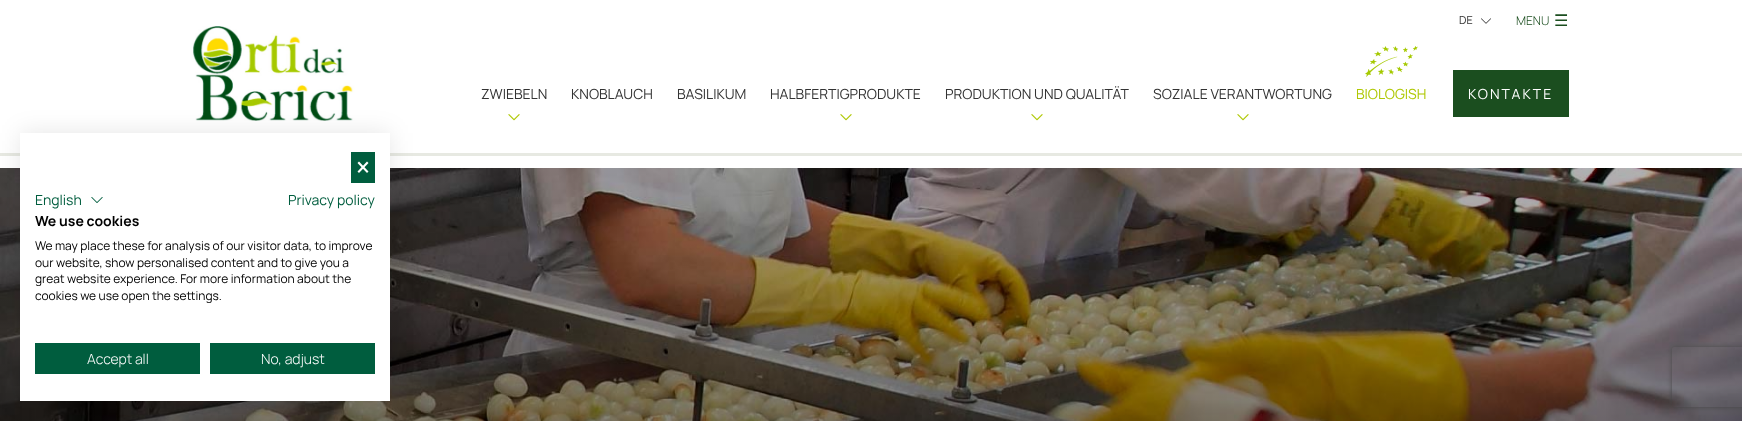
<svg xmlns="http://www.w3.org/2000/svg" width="1742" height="421">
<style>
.a{font:11px Manrope;fill:#333}
.b{font:300 12px Manrope;fill:#1b4e1f}
.c{font:16px DejaVu Sans;fill:#1b4e1f}
.d{font:14px Manrope;fill:#333}
.e{font:14px Manrope;fill:#afc803}
.f{font:14px Manrope;letter-spacing:2px;fill:#fff}
.g{font:14px Manrope;fill:#005d3e}
.h{font:bold 14px Manrope;fill:#000}
.i{font:12px Manrope;fill:#000}
.j{font:300 14px Manrope;fill:#fff}
</style>
<defs>
<clipPath id="clip1"><path d="M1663 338h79v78h-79zm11 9h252c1 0 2 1 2 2v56c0 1-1 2-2 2h-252c-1 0-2-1-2-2v-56c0-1 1-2 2-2z" clip-rule="evenodd"/></clipPath>
<linearGradient id="g1" gradientUnits="userSpaceOnUse" x1="871" y1="168" x2="871" y2="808"><stop offset="0" stop-color="#000" stop-opacity="0.3"/><stop offset="1" stop-color="#000" stop-opacity="0.75"/></linearGradient>
</defs>
<rect width="100%" height="100%" fill="#fff"/>
<image href="1.png" x="174" y="26" width="200" height="107"/>
<image href="2.png" x="1481" y="18" width="10" height="6"/>
<image href="3.png" x="508" y="114" width="12" height="7"/>
<image href="3.png" x="840" y="114" width="12" height="7"/>
<image href="3.png" x="1031" y="114" width="12" height="7"/>
<image href="3.png" x="1237" y="114" width="12" height="7"/>
<image href="4.png" x="1365" y="46" width="53" height="31"/>
<path fill="#1b4e1f" d="M1453 70h116v47H1453z"/>
<path fill="#e7e9e2" d="M0 153h1742v3H0z"/>
<image href="5.png" x="0" y="168" width="1742" height="253"/>
<g clip-path="url(#clip1)">
<rect fill="#808080" filter="blur(2.5px)" x="1672" y="347" width="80" height="60" rx="2"/>
</g>
<path fill="url(#g1)" d="M0 168h1742v253H0z"/>
<path fill="#0000001a" filter="blur(12px)" d="M20 133h370v268H20z"/>
<path fill="#fff" d="M20 133h370v268H20z"/>
<path fill="#005d3e" d="M351 152h24v31H351z"/>
<path fill="#fff" d="M367 161.5l1.5 1.5l-9.5 10l-1.5-1.5z"/>
<path fill="#fff" d="M357.5 163l1.5-1.5l9.5 10l-1.5 1.5z"/>
<image href="6.png" x="91" y="197" width="12" height="6"/>
<path fill="#005d3e" d="M35 343h165v31H35z"/>
<path fill="#005d3e" d="M210 343h165v31H210z"/>
<text class="a" x="1459" y="24">DE</text>
<text class="b" x="1516" y="25">MENU</text>
<text class="c" x="1554" y="26">☰</text>
<text class="d" x="481" y="99">ZWIEBELN</text>
<text class="d" x="571" y="99">KNOBLAUCH</text>
<text class="d" x="677" y="99">BASILIKUM</text>
<text class="d" x="770" y="99">HALBFERTIGPRODUKTE</text>
<text class="d" x="945" y="99">PRODUKTION UND QUALITÄT</text>
<text class="d" x="1153" y="99">SOZIALE VERANTWORTUNG</text>
<text class="e" x="1356" y="99">BIOLOGISH</text>
<text class="f" x="1468" y="99">KONTAKTE</text>
<text class="g" x="35" y="205">English</text>
<text class="g" x="288" y="205">Privacy policy</text>
<text class="h" x="35" y="226">We use cookies</text>
<text class="i" x="35" y="250">We may place these for analysis of our visitor data, to improve</text>
<text class="i" x="35" y="267">our website, show personalised content and to give you a</text>
<text class="i" x="35" y="283">great website experience. For more information about the</text>
<text class="i" x="35" y="300">cookies we use open the settings.</text>
<text class="j" x="87" y="364">Accept all</text>
<text class="j" x="261" y="364">No, adjust</text>
</svg>
